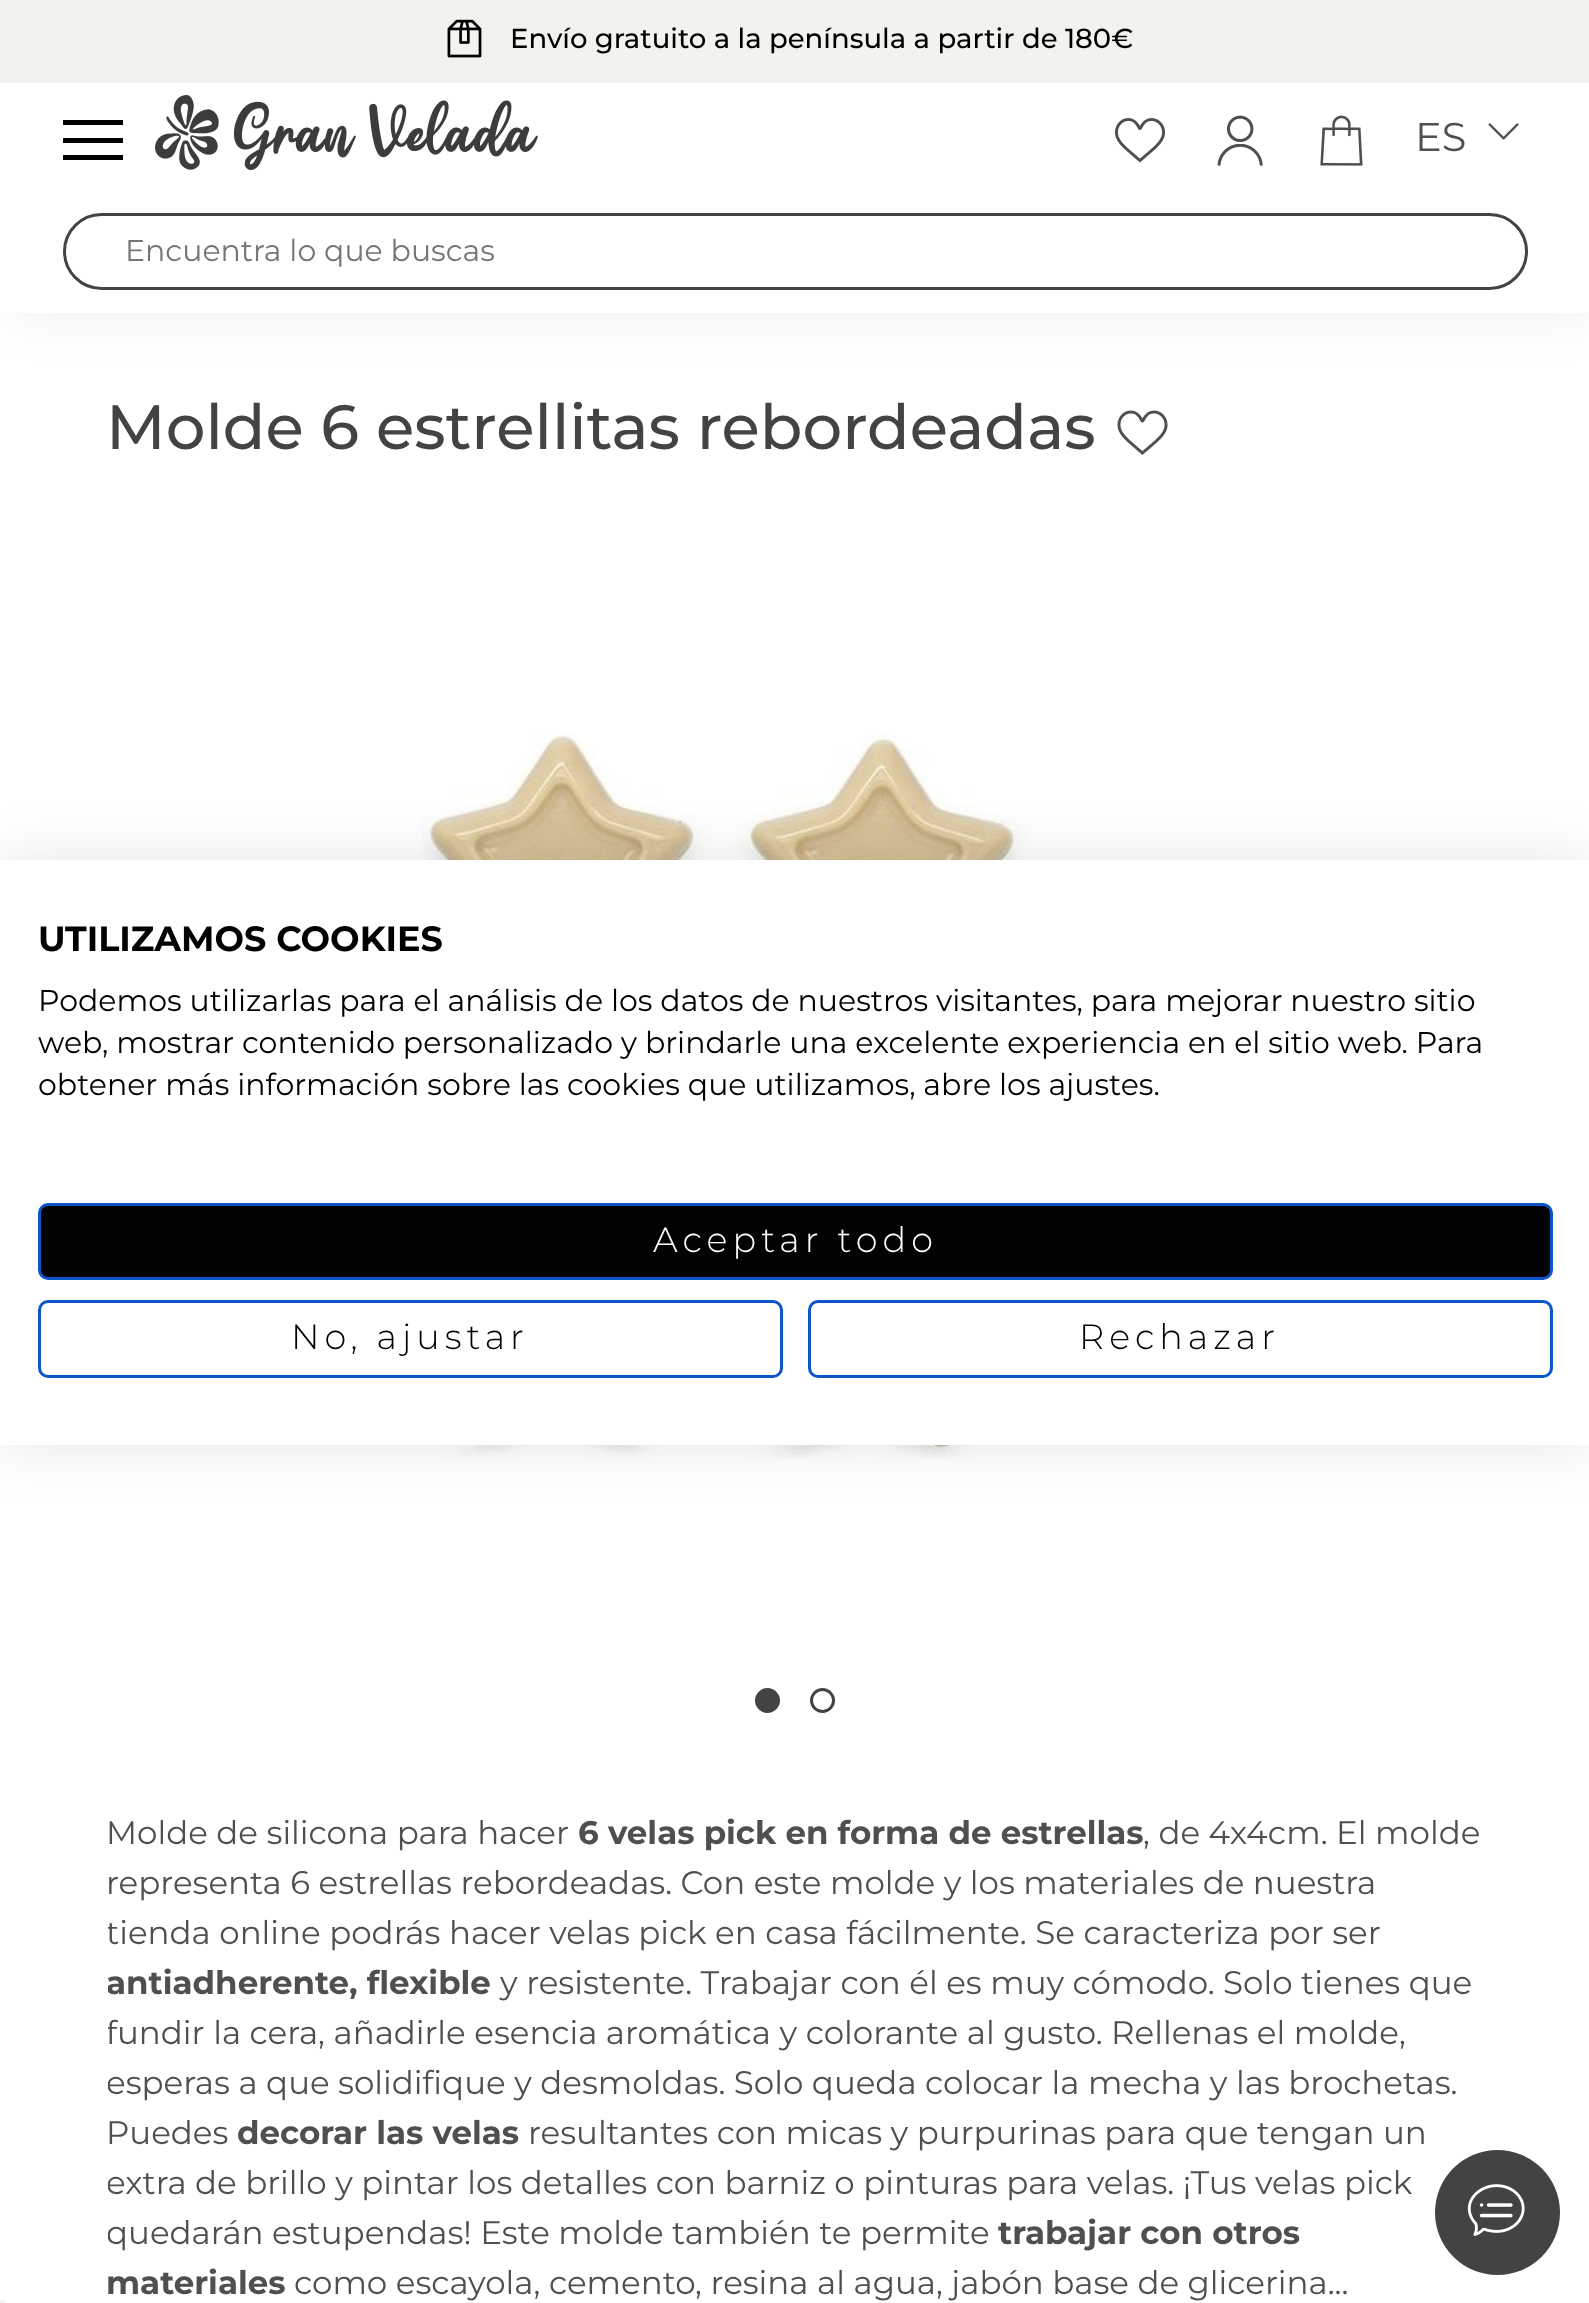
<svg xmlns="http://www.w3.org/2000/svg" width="1589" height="2303">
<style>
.a{font:500 27.5px Montserrat;fill:#000}
.b{font:40px Montserrat;fill:#504f4f}
.c{font:30px Montserrat;fill:#757575}
.d{font:500 62.5px Montserrat;fill:#444242}
.e{font:32.5px Montserrat;fill:#504f4f}
.f{font:bold 32.5px Montserrat;fill:#504f4f}
.g{font:bold 35px Montserrat;fill:#000}
.h{font:30px Montserrat;fill:#000}
.i{font:300 35px Montserrat;letter-spacing:5px;fill:#fff}
.j{font:300 35px Montserrat;letter-spacing:5px;fill:#000}
</style>
<defs>
<clipPath id="clip1"><path d="M108 350h1377v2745H108z"/></clipPath>
</defs>
<rect width="100%" height="100%" fill="#fff"/>
<path fill="#0000000d" filter="blur(25px)" d="M8 8h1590v312H8z"/>
<path fill="#fff" d="M0 83h1589v230H0z"/>
<path fill="#f3f2ee" d="M0 0h1589v83H0z"/>
<image href="1.png" x="447" y="19" width="35" height="39"/>
<image href="2.png" x="1115" y="118" width="50" height="45"/>
<image href="3.png" x="1217" y="115" width="46" height="51"/>
<image href="4.png" x="1320" y="115" width="43" height="51"/>
<image href="5.png" x="1488" y="123" width="31" height="17"/>
<path fill="#000" d="M63 120h60v5H63z"/>
<path fill="#000" d="M63 138h60v5H63z"/>
<path fill="#000" d="M63 155h60v5H63z"/>
<image href="6.png" x="155" y="95" width="383" height="75"/>
<rect fill="none" stroke="#444242" stroke-width="3" x="64.5" y="214.5" width="1462" height="74" rx="37"/>
<circle fill="#444242" cx="1497.5" cy="2212.5" r="62.5"/>
<image href="7.png" x="1467" y="2184" width="58" height="52"/>
<image href="8.png" x="1117" y="410" width="51" height="45"/>
<image href="9.png" x="420" y="733" width="749" height="726"/>
<circle fill="#444242" stroke="#444242" stroke-width="3" cx="767.5" cy="1700.5" r="11"/>
<circle fill="none" stroke="#444242" stroke-width="3" cx="822.5" cy="1700.5" r="11"/>
<path fill="#0000001a" filter="blur(30px)" d="M0 860h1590v585H0z"/>
<path fill="#fff" d="M0 860h1589v585H0z"/>
<rect fill="#020202" stroke="#0d56c9" stroke-width="3" x="39.5" y="1204.5" width="1512" height="74" rx="8.5"/>
<rect fill="none" stroke="#0d56c9" stroke-width="3" x="39.5" y="1301.5" width="742" height="75" rx="8.5"/>
<rect fill="none" stroke="#0d56c9" stroke-width="3" x="809.5" y="1301.5" width="742" height="75" rx="8.5"/>
<path fill="#f5f5f5" d="M0 2300h5v3H0z"/>
<text class="a" x="510" y="48">Envío gratuito a la península a partir de 180€</text>
<text class="b" x="1415" y="151">ES</text>
<text class="c" x="125" y="261">Encuentra lo que buscas</text>
<text class="d" x="106" y="449">Molde 6 estrellitas rebordeadas</text>
<text class="e" x="106" y="1844">Molde de silicona para hacer</text>
<text class="f" x="578" y="1844">6 velas pick en forma de estrellas</text>
<text class="e" x="1143" y="1844">, de 4x4cm. El molde</text>
<text class="e" x="106" y="1894">representa 6 estrellas rebordeadas. Con este molde y los materiales de nuestra</text>
<g clip-path="url(#clip1)">
<text class="e" x="106" y="1944">tienda online podrás hacer velas pick en casa fácilmente. Se caracteriza por ser</text>
<text class="f" x="106" y="1994">antiadherente, flexible</text>
</g>
<text class="e" x="500" y="1994">y resistente. Trabajar con él es muy cómodo. Solo tienes que</text>
<g clip-path="url(#clip1)">
<text class="e" x="106" y="2044">fundir la cera, añadirle esencia aromática y colorante al gusto. Rellenas el molde,</text>
<text class="e" x="106" y="2094">esperas a que solidifique y desmoldas. Solo queda colocar la mecha y las brochetas.</text>
</g>
<text class="e" x="106" y="2144">Puedes</text>
<text class="f" x="237" y="2144">decorar las velas</text>
<text class="e" x="528" y="2144">resultantes con micas y purpurinas para que tengan un</text>
<g clip-path="url(#clip1)">
<text class="e" x="106" y="2194">extra de brillo y pintar los detalles con barniz o pinturas para velas. ¡Tus velas pick</text>
<text class="e" x="106" y="2244">quedarán estupendas! Este molde también te permite</text>
</g>
<text class="f" x="998" y="2244">trabajar con otros</text>
<text class="f" x="106" y="2294">materiales</text>
<text class="e" x="294" y="2294">como escayola, cemento, resina al agua, jabón base de glicerina...</text>
<text class="g" x="38" y="951">UTILIZAMOS COOKIES</text>
<text class="h" x="38" y="1011">Podemos utilizarlas para el análisis de los datos de nuestros visitantes, para mejorar nuestro sitio</text>
<text class="h" x="38" y="1053">web, mostrar contenido personalizado y brindarle una excelente experiencia en el sitio web. Para</text>
<text class="h" x="38" y="1095">obtener más información sobre las cookies que utilizamos, abre los ajustes.</text>
<text class="i" x="653" y="1252">Aceptar todo</text>
<text class="j" x="291" y="1349">No, ajustar</text>
<text class="j" x="1079" y="1349">Rechazar</text>
</svg>
